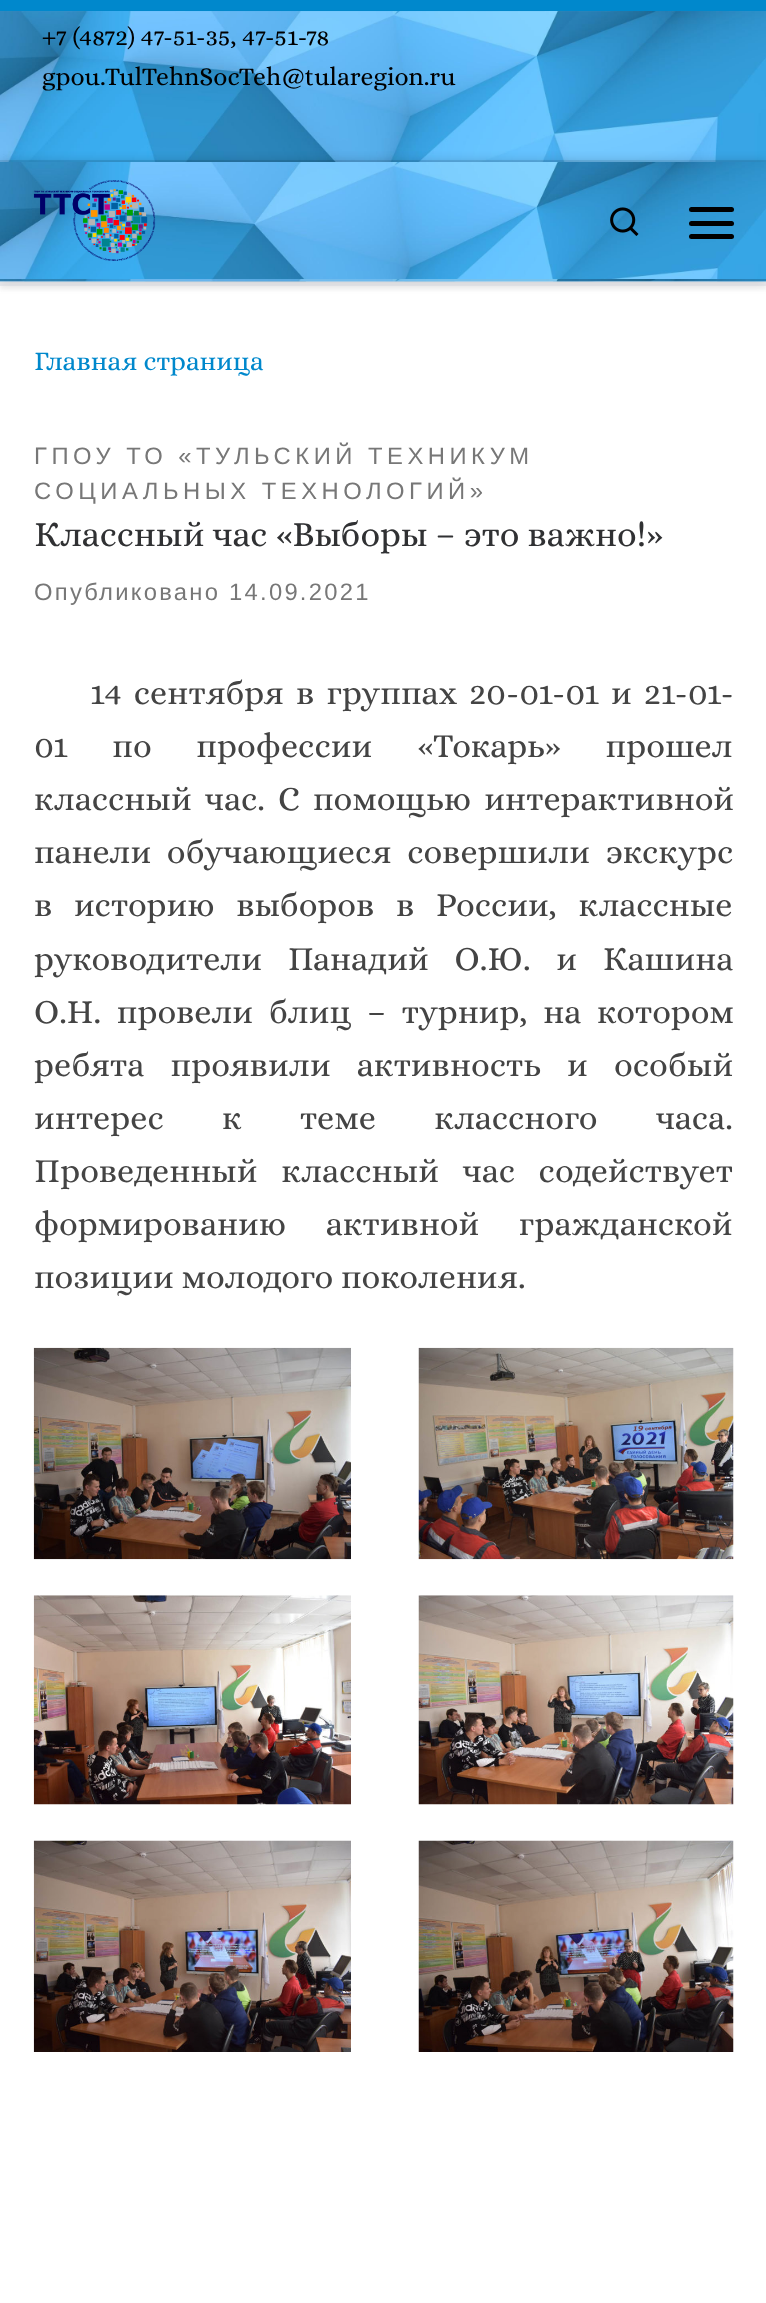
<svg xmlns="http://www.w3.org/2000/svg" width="766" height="2303">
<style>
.a{font:25.75px Alice;fill:#000}
.b{font:27.25px Alice;fill:#08c}
.c{font:23.8px Liberation Sans;letter-spacing:4.5px;fill:#777}
.d{font:35.9px Alice;fill:#303133}
.e{font:23.8px Liberation Sans;letter-spacing:2.25px;fill:#777}
.f{font:34.25px Alice;fill:#444}
</style>
<rect width="100%" height="100%" fill="#fff"/>
<path fill="#66666614" filter="blur(2px)" d="M0 5h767v285H0z"/>
<image href="1.png" x="0" y="11" width="766" height="1"/>
<path fill="#08c" d="M0 0h766v11H0z"/>
<path fill="#e9eaee" d="M0 284h766v2H0z"/>
<image href="2.png" x="0" y="11" width="766" height="151"/>
<path fill="#00000017" d="M0 160h766v2H0z"/>
<path fill="#ecedf1" d="M0 281h766v3H0z"/>
<path fill="#00000033" filter="blur(5.5px)" d="M0 162h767v119H0z"/>
<image href="3.png" x="0" y="162" width="766" height="120"/>
<image href="4.png" x="33" y="180" width="123" height="81"/>
<image href="5.png" x="610" y="207" width="29" height="29"/>
<rect fill="#000" x="689" y="207" width="45" height="5" rx="2.5"/>
<rect fill="#000" x="689" y="221" width="45" height="5" rx="2.5"/>
<rect fill="#000" x="689" y="234" width="45" height="5" rx="2.5"/>
<image href="6.png" x="0" y="279" width="766" height="3"/>
<path fill="#00000012" d="M0 279h766v2H0z"/>
<image href="7.png" x="33" y="1347" width="318" height="213"/>
<image href="8.png" x="418" y="1347" width="316" height="213"/>
<image href="9.png" x="33" y="1595" width="318" height="210"/>
<image href="10.png" x="418" y="1595" width="316" height="210"/>
<image href="11.png" x="33" y="1840" width="318" height="212"/>
<image href="12.png" x="418" y="1840" width="316" height="212"/>
<text class="a" x="42" y="45">+7 (4872) 47-51-35, 47-51-78</text>
<text class="a" x="42" y="85">gpou.TulTehnSocTeh@tularegion.ru</text>
<text class="b" x="34" y="370">Главная страница</text>
<text class="c" x="34" y="464">ГПОУ ТО «ТУЛЬСКИЙ ТЕХНИКУМ</text>
<text class="c" x="34" y="499">СОЦИАЛЬНЫХ ТЕХНОЛОГИЙ»</text>
<text class="d" x="34" y="546">Классный час «Выборы – это важно!»</text>
<text class="e" x="34" y="600">Опубликовано 14.09.2021</text>
<text class="f" x="90" y="704" word-spacing="4.5">14 сентября в группах 20-01-01 и 21-01-</text>
<text class="f" x="34" y="757" word-spacing="37">01 по профессии «Токарь» прошел</text>
<text class="f" x="34" y="810" word-spacing="5.5">классный час. С помощью интерактивной</text>
<text class="f" x="34" y="863" word-spacing="8">панели обучающиеся совершили экскурс</text>
<text class="f" x="34" y="916" word-spacing="14">в историю выборов в России, классные</text>
<text class="f" x="34" y="970" word-spacing="18">руководители Панадий О.Ю. и Кашина</text>
<text class="f" x="34" y="1023" word-spacing="8">О.Н. провели блиц – турнир, на котором</text>
<text class="f" x="34" y="1076" word-spacing="18.5">ребята проявили активность и особый</text>
<text class="f" x="34" y="1129" word-spacing="50.5">интерес к теме классного часа.</text>
<text class="f" x="34" y="1182" word-spacing="16">Проведенный классный час содействует</text>
<text class="f" x="34" y="1235" word-spacing="32">формированию активной гражданской</text>
<text class="f" x="34" y="1288">позиции молодого поколения.</text>
</svg>
